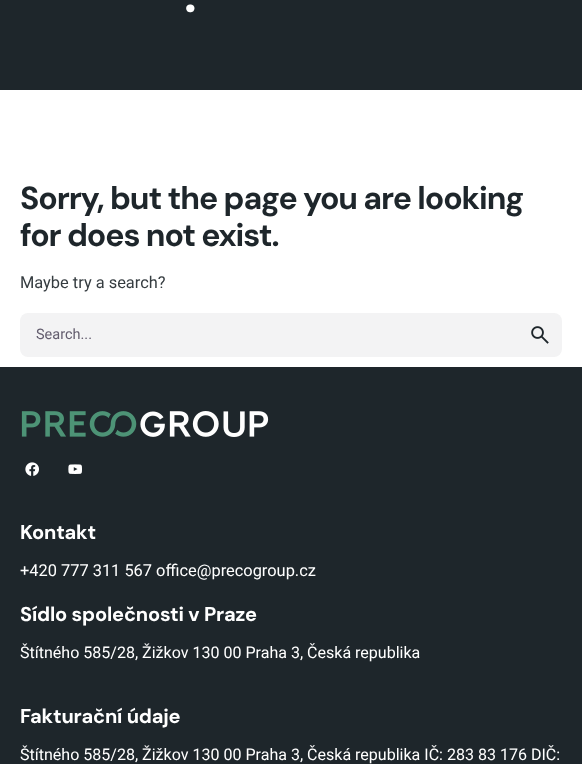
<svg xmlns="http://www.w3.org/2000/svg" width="582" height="764">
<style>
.a{font:bold 50px DM Sans;letter-spacing:-2px;fill:#fff}
.b{font:bold 32px DM Sans;letter-spacing:-1.1px;fill:#1e262b}
.c{font:16.4px Roboto;fill:#353c40}
.d{font:14.5px Roboto;fill:#635d6e}
.e{font:bold 20px DM Sans;letter-spacing:-0.2px;fill:#fff}
.f{font:16.4px Roboto;fill:#fff}
.g{font:16.05px Roboto;fill:#fff}
</style>
<rect width="100%" height="100%" fill="#fff"/>
<path fill="#1e262b" d="M0 0h582v90H0z"/>
<rect fill="#f3f3f4" x="20" y="313" width="542" height="44" rx="8"/>
<image href="1.png" x="531" y="326" width="18" height="18"/>
<path fill="#1e262b" d="M0 367h582v397H0z"/>
<image href="2.png" x="21" y="411" width="248" height="26"/>
<image href="3.png" x="25" y="462" width="14" height="14"/>
<image href="4.png" x="68" y="464" width="14" height="10"/>
<text class="a" x="184" y="12">.</text>
<text class="b" x="20" y="209">Sorry, but the page you are looking</text>
<text class="b" x="20" y="246">for does not exist.</text>
<text class="c" x="20" y="288">Maybe try a search?</text>
<text class="d" x="36" y="339">Search...</text>
<text class="e" x="20" y="539">Kontakt</text>
<text class="f" x="20" y="576">+420 777 311 567 office@precogroup.cz</text>
<text class="e" x="20" y="621">Sídlo společnosti v Praze</text>
<text class="g" x="20" y="658">Štítného 585/28, Žižkov 130 00 Praha 3, Česká republika</text>
<text class="e" x="20" y="723">Fakturační údaje</text>
<text class="g" x="20" y="760">Štítného 585/28, Žižkov 130 00 Praha 3, Česká republika IČ: 283 83 176 DIČ:</text>
</svg>
